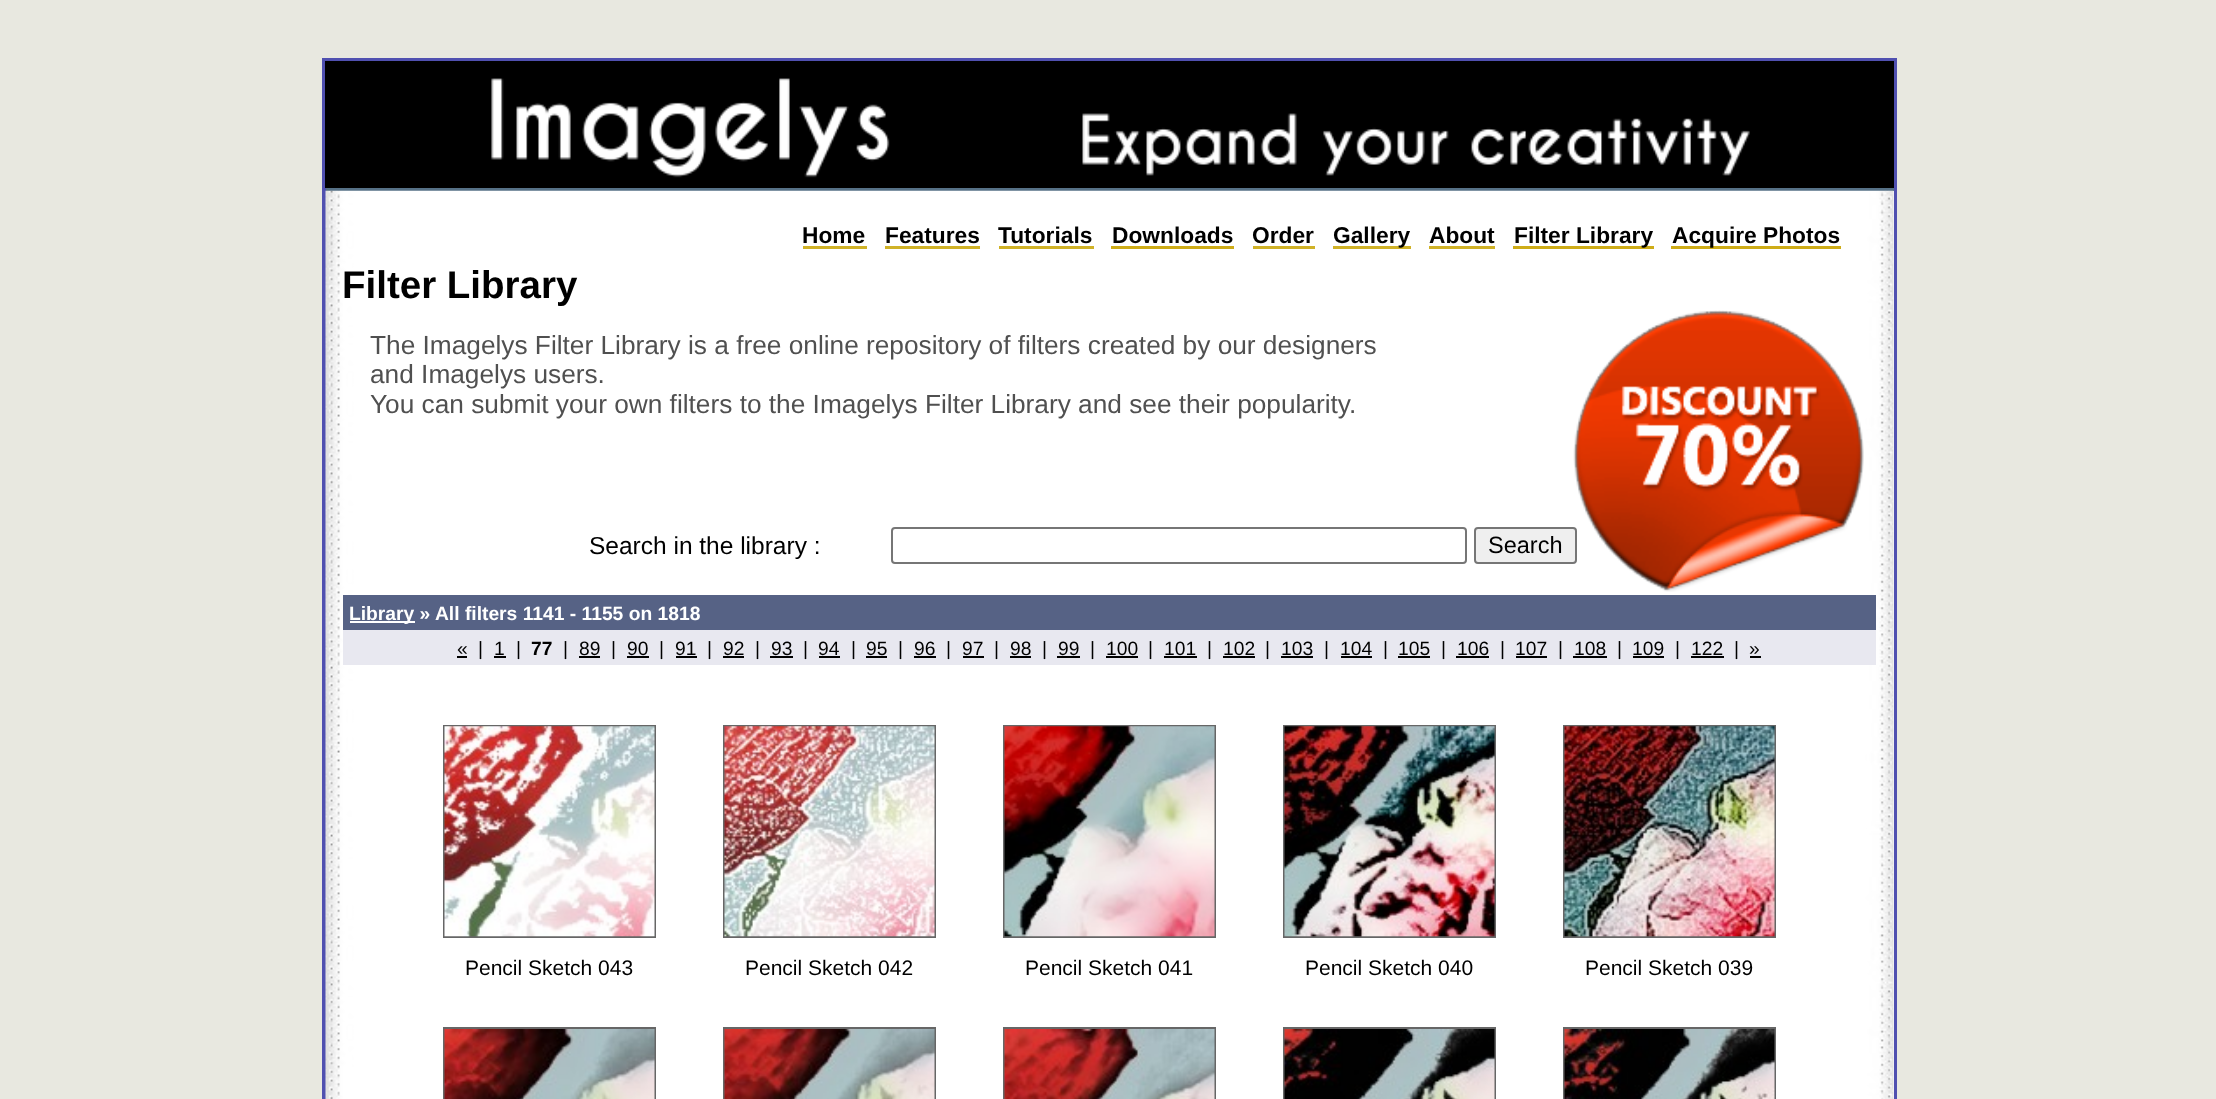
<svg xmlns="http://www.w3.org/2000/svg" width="2216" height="1099">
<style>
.a{font:bold 22.75px Liberation Sans;fill:#000}
.b{font:bold 38.5px Liberation Sans;fill:#000}
.c{font:26.25px Liberation Sans;fill:#505050}
.d{font:24.5px Liberation Sans;fill:#000}
.e{font:23.5px Liberation Sans;fill:#000}
.f{font:bold 19.25px Liberation Sans;fill:#fff}
.g{font:19.25px Liberation Sans;fill:#000}
.h{font:bold 19.25px Liberation Sans;fill:#000}
.i{font:21px Liberation Sans;fill:#000}
</style>
<rect width="100%" height="100%" fill="#e8e8e0"/>
<path fill="none" stroke="#5050b0" stroke-width="2" d="M323 59h1573v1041H323z"/>
<path fill="none" stroke="#5050b0" stroke-width="2" d="M325 61h1569v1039H325z"/>
<path fill="#567186" d="M326 188h1568v3H326z"/>
<path fill="#000" d="M325 61h1569v127H325z"/>
<image href="1.png" x="491" y="78" width="1259" height="100"/>
<path fill="#fff" d="M1893 191h1v908H1893z"/>
<image href="2.png" x="325" y="190" width="1569" height="909"/>
<path fill="#d0b227" d="M803 246h64v3H803z"/>
<path fill="#d0b227" d="M885 246h95v3H885z"/>
<path fill="#d0b227" d="M999 246h95v3H999z"/>
<path fill="#ceac17" d="M1111 246h123v3H1111z"/>
<path fill="#d0b227" d="M1253 246h62v3H1253z"/>
<path fill="#d0b227" d="M1333 246h78v3H1333z"/>
<path fill="#d0b227" d="M1429 246h66v3H1429z"/>
<path fill="#ceac17" d="M1513 246h141v3H1513z"/>
<path fill="#ceac17" d="M1671 246h170v3H1671z"/>
<rect fill="none" stroke="#767676" stroke-width="2" x="892" y="528" width="574" height="35" rx="3"/>
<rect fill="#efefef" stroke="#767676" stroke-width="2" x="1475" y="528" width="101" height="35" rx="3"/>
<path fill="#566285" d="M343 595h1533v35H343z"/>
<path fill="#fff" d="M350 621h65v2H350z"/>
<path fill="#e8e8f0" d="M343 630h1533v35H343z"/>
<path fill="#000" d="M457 656h10v2H457z"/>
<path fill="#000" d="M494 656h12v2H494z"/>
<path fill="#000" d="M579 656h21v2H579z"/>
<path fill="#000" d="M627 656h22v2H627z"/>
<path fill="#000" d="M676 656h21v2H676z"/>
<path fill="#000" d="M723 656h21v2H723z"/>
<path fill="#000" d="M770 656h23v2H770z"/>
<path fill="#000" d="M819 656h21v2H819z"/>
<path fill="#000" d="M866 656h21v2H866z"/>
<path fill="#000" d="M914 656h22v2H914z"/>
<path fill="#000" d="M963 656h21v2H963z"/>
<path fill="#000" d="M1010 656h21v2H1010z"/>
<path fill="#000" d="M1057 656h23v2H1057z"/>
<path fill="#000" d="M1106 656h32v2H1106z"/>
<path fill="#000" d="M1164 656h33v2H1164z"/>
<path fill="#000" d="M1223 656h32v2H1223z"/>
<path fill="#000" d="M1281 656h32v2H1281z"/>
<path fill="#000" d="M1341 656h31v2H1341z"/>
<path fill="#000" d="M1398 656h32v2H1398z"/>
<path fill="#000" d="M1456 656h33v2H1456z"/>
<path fill="#000" d="M1516 656h31v2H1516z"/>
<path fill="#000" d="M1573 656h34v2H1573z"/>
<path fill="#000" d="M1633 656h31v2H1633z"/>
<path fill="#000" d="M1691 656h33v2H1691z"/>
<path fill="#000" d="M1750 656h11v2H1750z"/>
<path fill="none" stroke="#666" stroke-width="2" d="M444 726h211v211H444z"/>
<image href="3.png" x="444" y="726" width="211" height="211"/>
<path fill="none" stroke="#666" stroke-width="2" d="M724 726h211v211H724z"/>
<image href="4.png" x="724" y="726" width="211" height="211"/>
<path fill="none" stroke="#666" stroke-width="2" d="M1004 726h211v211H1004z"/>
<image href="5.png" x="1004" y="726" width="211" height="211"/>
<path fill="none" stroke="#666" stroke-width="2" d="M1284 726h211v211H1284z"/>
<image href="6.png" x="1284" y="726" width="211" height="211"/>
<path fill="none" stroke="#666" stroke-width="2" d="M1564 726h211v211H1564z"/>
<image href="7.png" x="1564" y="726" width="211" height="211"/>
<path fill="none" stroke="#666" stroke-width="2" d="M444 1028h211v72H444z"/>
<image href="8.png" x="444" y="1029" width="211" height="70"/>
<path fill="none" stroke="#666" stroke-width="2" d="M724 1028h211v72H724z"/>
<image href="9.png" x="724" y="1029" width="211" height="70"/>
<path fill="none" stroke="#666" stroke-width="2" d="M1004 1028h211v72H1004z"/>
<image href="10.png" x="1004" y="1029" width="211" height="70"/>
<path fill="none" stroke="#666" stroke-width="2" d="M1284 1028h211v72H1284z"/>
<image href="11.png" x="1284" y="1029" width="211" height="70"/>
<path fill="none" stroke="#666" stroke-width="2" d="M1564 1028h211v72H1564z"/>
<image href="12.png" x="1564" y="1029" width="211" height="70"/>
<image href="13.png" x="1573" y="310" width="291" height="282"/>
<text class="a" x="802" y="243">Home</text>
<text class="a" x="885" y="243">Features</text>
<text class="a" x="998" y="243">Tutorials</text>
<text class="a" x="1112" y="243">Downloads</text>
<text class="a" x="1252" y="243">Order</text>
<text class="a" x="1333" y="243">Gallery</text>
<text class="a" x="1429" y="243">About</text>
<text class="a" x="1514" y="243">Filter Library</text>
<text class="a" x="1672" y="243">Acquire Photos</text>
<text class="b" x="342" y="298">Filter Library</text>
<text class="c" x="370" y="354">The Imagelys Filter Library is a free online repository of filters created by our designers</text>
<text class="c" x="370" y="383">and Imagelys users.</text>
<text class="c" x="370" y="413">You can submit your own filters to the Imagelys Filter Library and see their popularity.</text>
<text class="d" x="589" y="554">Search in the library :</text>
<text class="e" x="1488" y="553">Search</text>
<text class="f" x="349" y="620">Library » All filters 1141 - 1155 on 1818</text>
<text class="g" x="457" y="655">«</text>
<text class="g" x="478" y="655">|</text>
<text class="g" x="494" y="655">1</text>
<text class="g" x="516" y="655">|</text>
<text class="h" x="531" y="655">77</text>
<text class="g" x="563" y="655">|</text>
<text class="g" x="579" y="655">89</text>
<text class="g" x="611" y="655">|</text>
<text class="g" x="627" y="655">90</text>
<text class="g" x="659" y="655">|</text>
<text class="g" x="675" y="655">91</text>
<text class="g" x="707" y="655">|</text>
<text class="g" x="723" y="655">92</text>
<text class="g" x="755" y="655">|</text>
<text class="g" x="771" y="655">93</text>
<text class="g" x="803" y="655">|</text>
<text class="g" x="818" y="655">94</text>
<text class="g" x="851" y="655">|</text>
<text class="g" x="866" y="655">95</text>
<text class="g" x="898" y="655">|</text>
<text class="g" x="914" y="655">96</text>
<text class="g" x="946" y="655">|</text>
<text class="g" x="962" y="655">97</text>
<text class="g" x="994" y="655">|</text>
<text class="g" x="1010" y="655">98</text>
<text class="g" x="1042" y="655">|</text>
<text class="g" x="1058" y="655">99</text>
<text class="g" x="1090" y="655">|</text>
<text class="g" x="1106" y="655">100</text>
<text class="g" x="1148" y="655">|</text>
<text class="g" x="1164" y="655">101</text>
<text class="g" x="1207" y="655">|</text>
<text class="g" x="1223" y="655">102</text>
<text class="g" x="1265" y="655">|</text>
<text class="g" x="1281" y="655">103</text>
<text class="g" x="1324" y="655">|</text>
<text class="g" x="1340" y="655">104</text>
<text class="g" x="1383" y="655">|</text>
<text class="g" x="1398" y="655">105</text>
<text class="g" x="1441" y="655">|</text>
<text class="g" x="1457" y="655">106</text>
<text class="g" x="1500" y="655">|</text>
<text class="g" x="1515" y="655">107</text>
<text class="g" x="1558" y="655">|</text>
<text class="g" x="1574" y="655">108</text>
<text class="g" x="1617" y="655">|</text>
<text class="g" x="1632" y="655">109</text>
<text class="g" x="1675" y="655">|</text>
<text class="g" x="1691" y="655">122</text>
<text class="g" x="1734" y="655">|</text>
<text class="g" x="1749" y="655">»</text>
<text class="i" x="465" y="975">Pencil Sketch 043</text>
<text class="i" x="745" y="975">Pencil Sketch 042</text>
<text class="i" x="1025" y="975">Pencil Sketch 041</text>
<text class="i" x="1305" y="975">Pencil Sketch 040</text>
<text class="i" x="1585" y="975">Pencil Sketch 039</text>
</svg>
